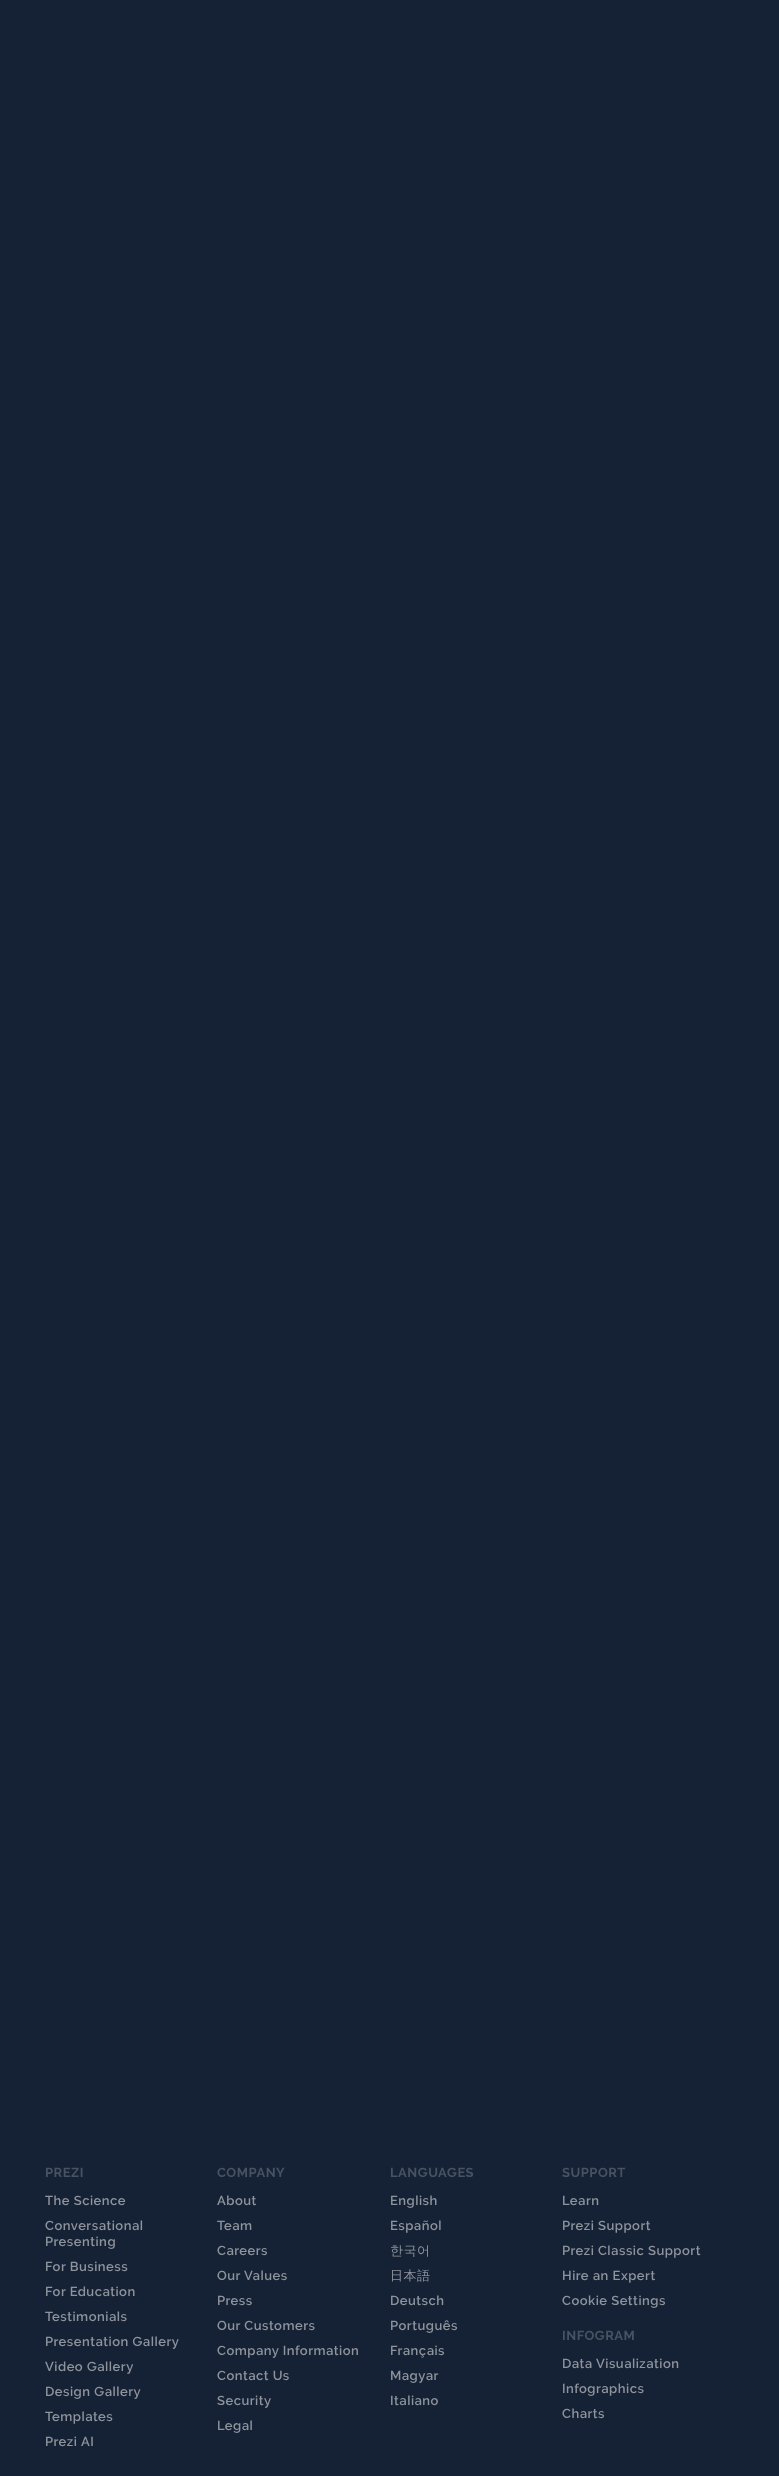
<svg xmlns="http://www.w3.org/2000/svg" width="779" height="2476">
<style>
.a{font:bold 13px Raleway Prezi;letter-spacing:0.5px;fill:#475262}
.b{font:600 13px Raleway Prezi;letter-spacing:0.5px;fill:#8e939c}
.c{font:500 13px WenQuanYi Zen Hei;letter-spacing:0.5px;fill:#8e939c}
</style>
<rect width="100%" height="100%" fill="#152235"/>
<text class="a" x="45" y="2177">PREZI</text>
<text class="b" x="45" y="2205">The Science</text>
<text class="b" x="45" y="2230">Conversational</text>
<text class="b" x="45" y="2246">Presenting</text>
<text class="b" x="45" y="2271">For Business</text>
<text class="b" x="45" y="2296">For Education</text>
<text class="b" x="45" y="2321">Testimonials</text>
<text class="b" x="45" y="2346">Presentation Gallery</text>
<text class="b" x="45" y="2371">Video Gallery</text>
<text class="b" x="45" y="2396">Design Gallery</text>
<text class="b" x="45" y="2421">Templates</text>
<text class="b" x="45" y="2446">Prezi AI</text>
<text class="a" x="217" y="2177">COMPANY</text>
<text class="b" x="217" y="2205">About</text>
<text class="b" x="217" y="2230">Team</text>
<text class="b" x="217" y="2255">Careers</text>
<text class="b" x="217" y="2280">Our Values</text>
<text class="b" x="217" y="2305">Press</text>
<text class="b" x="217" y="2330">Our Customers</text>
<text class="b" x="217" y="2355">Company Information</text>
<text class="b" x="217" y="2380">Contact Us</text>
<text class="b" x="217" y="2405">Security</text>
<text class="b" x="217" y="2430">Legal</text>
<text class="a" x="390" y="2177">LANGUAGES</text>
<text class="b" x="390" y="2205">English</text>
<text class="b" x="390" y="2230">Español</text>
<text class="c" x="390" y="2255">한국어</text>
<text class="c" x="390" y="2280">日本語</text>
<text class="b" x="390" y="2305">Deutsch</text>
<text class="b" x="390" y="2330">Português</text>
<text class="b" x="390" y="2355">Français</text>
<text class="b" x="390" y="2380">Magyar</text>
<text class="b" x="390" y="2405">Italiano</text>
<text class="a" x="562" y="2177">SUPPORT</text>
<text class="b" x="562" y="2205">Learn</text>
<text class="b" x="562" y="2230">Prezi Support</text>
<text class="b" x="562" y="2255">Prezi Classic Support</text>
<text class="b" x="562" y="2280">Hire an Expert</text>
<text class="b" x="562" y="2305">Cookie Settings</text>
<text class="a" x="562" y="2340">INFOGRAM</text>
<text class="b" x="562" y="2368">Data Visualization</text>
<text class="b" x="562" y="2393">Infographics</text>
<text class="b" x="562" y="2418">Charts</text>
</svg>
